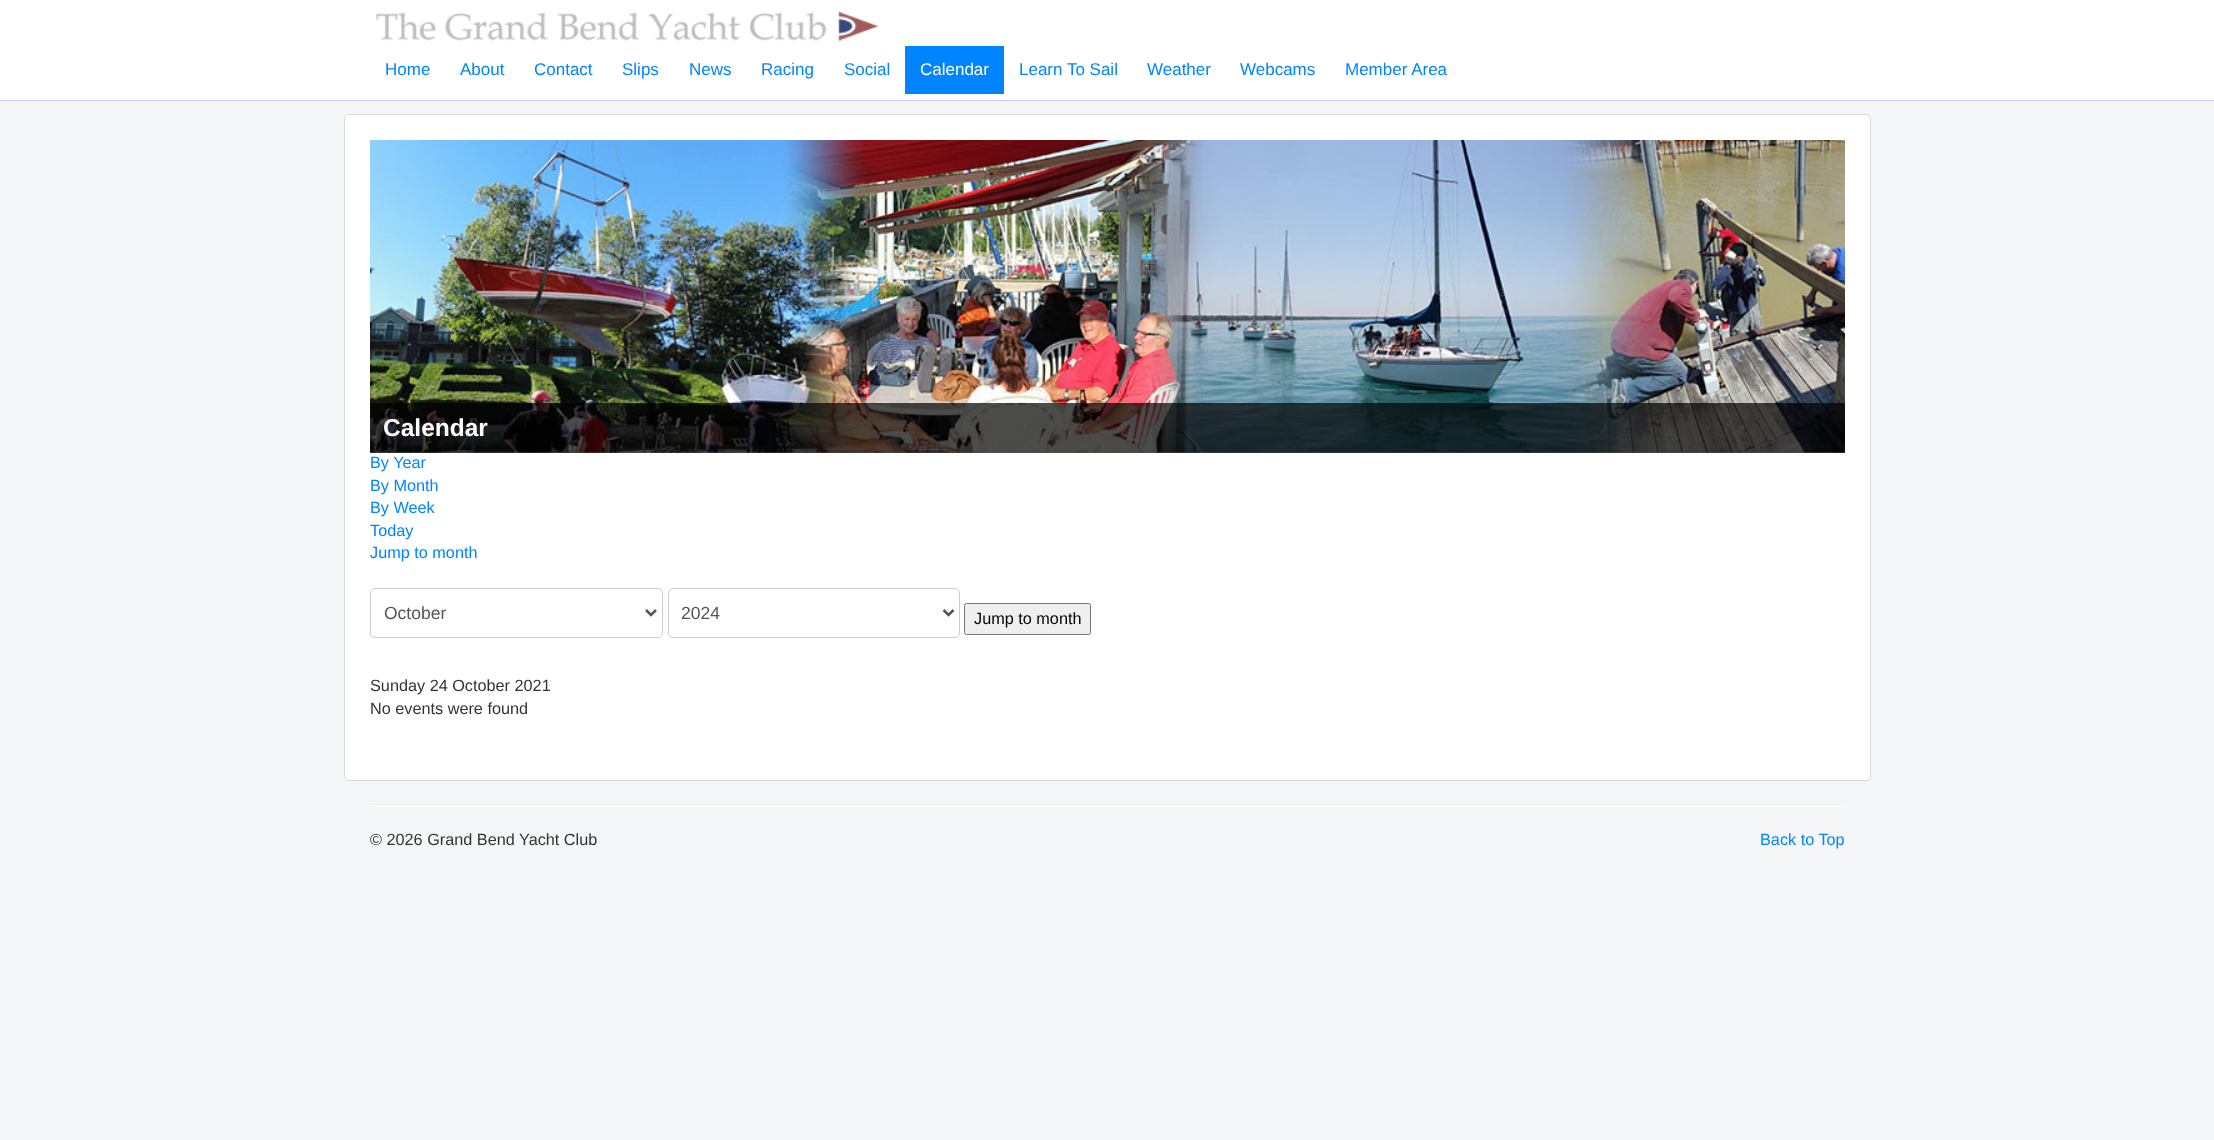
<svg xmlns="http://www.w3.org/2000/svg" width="2214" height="1140">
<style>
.a{font:17px Liberation Sans;fill:#0084ff}
.b{font:17px Liberation Sans;fill:#fff}
.c{font:bold 24.5px Liberation Sans;fill:#fff}
.d{font:16.25px Liberation Sans;fill:#0084ff}
.e{font:17.5px Liberation Sans;fill:#555}
.f{font:16.25px Liberation Sans;fill:#000}
.g{font:16.25px Liberation Sans;fill:#333}
</style>
<rect width="100%" height="100%" fill="#f4f6f7"/>
<path fill="#fff" d="M0 0h2214v100H0z"/>
<path fill="#ccf" d="M0 100h2214v1H0z"/>
<image href="1.png" x="376" y="11" width="503" height="31"/>
<path fill="#0084ff" d="M905 46h99v48H905z"/>
<rect fill="#fff" x="344" y="114" width="1527" height="667" rx="5"/>
<rect fill="none" stroke="#00000026" x="344.5" y="114.5" width="1526" height="666" rx="4.5"/>
<image href="2.png" x="370" y="140" width="1475" height="313"/>
<path fill="#000000b3" d="M370 403h1475v50H370z"/>
<rect fill="none" stroke="#ccc" x="370.5" y="588.5" width="292" height="49" rx="4.5"/>
<path fill="none" stroke="#555" stroke-width="2.5" d="M646 610l5 5l5-5"/>
<rect fill="none" stroke="#ccc" x="668.5" y="588.5" width="291" height="49" rx="4.5"/>
<path fill="none" stroke="#555" stroke-width="2.5" d="M943.5 610l5 5l5-5"/>
<rect fill="#efefef" stroke="#767676" x="964.5" y="603.5" width="126" height="31" rx="2"/>
<path fill="#eee" d="M370 804h1475v1H370z"/>
<path fill="#fff" d="M370 805h1475v1H370z"/>
<text class="a" x="385" y="75">Home</text>
<text class="a" x="460" y="75">About</text>
<text class="a" x="534" y="75">Contact</text>
<text class="a" x="622" y="75">Slips</text>
<text class="a" x="689" y="75">News</text>
<text class="a" x="761" y="75">Racing</text>
<text class="a" x="844" y="75">Social</text>
<text class="b" x="920" y="75">Calendar</text>
<text class="a" x="1019" y="75">Learn To Sail</text>
<text class="a" x="1147" y="75">Weather</text>
<text class="a" x="1240" y="75">Webcams</text>
<text class="a" x="1345" y="75">Member Area</text>
<text class="c" x="383" y="436">Calendar</text>
<text class="d" x="370" y="468">By Year</text>
<text class="d" x="370" y="491">By Month</text>
<text class="d" x="370" y="513">By Week</text>
<text class="d" x="370" y="536">Today</text>
<text class="d" x="370" y="558">Jump to month</text>
<text class="e" x="384" y="619">October</text>
<text class="e" x="681" y="619">2024</text>
<text class="f" x="974" y="624">Jump to month</text>
<text class="g" x="370" y="691">Sunday 24 October 2021</text>
<text class="g" x="370" y="714">No events were found</text>
<text class="g" x="370" y="845">© 2026 Grand Bend Yacht Club</text>
<text class="d" x="1760" y="845">Back to Top</text>
</svg>
